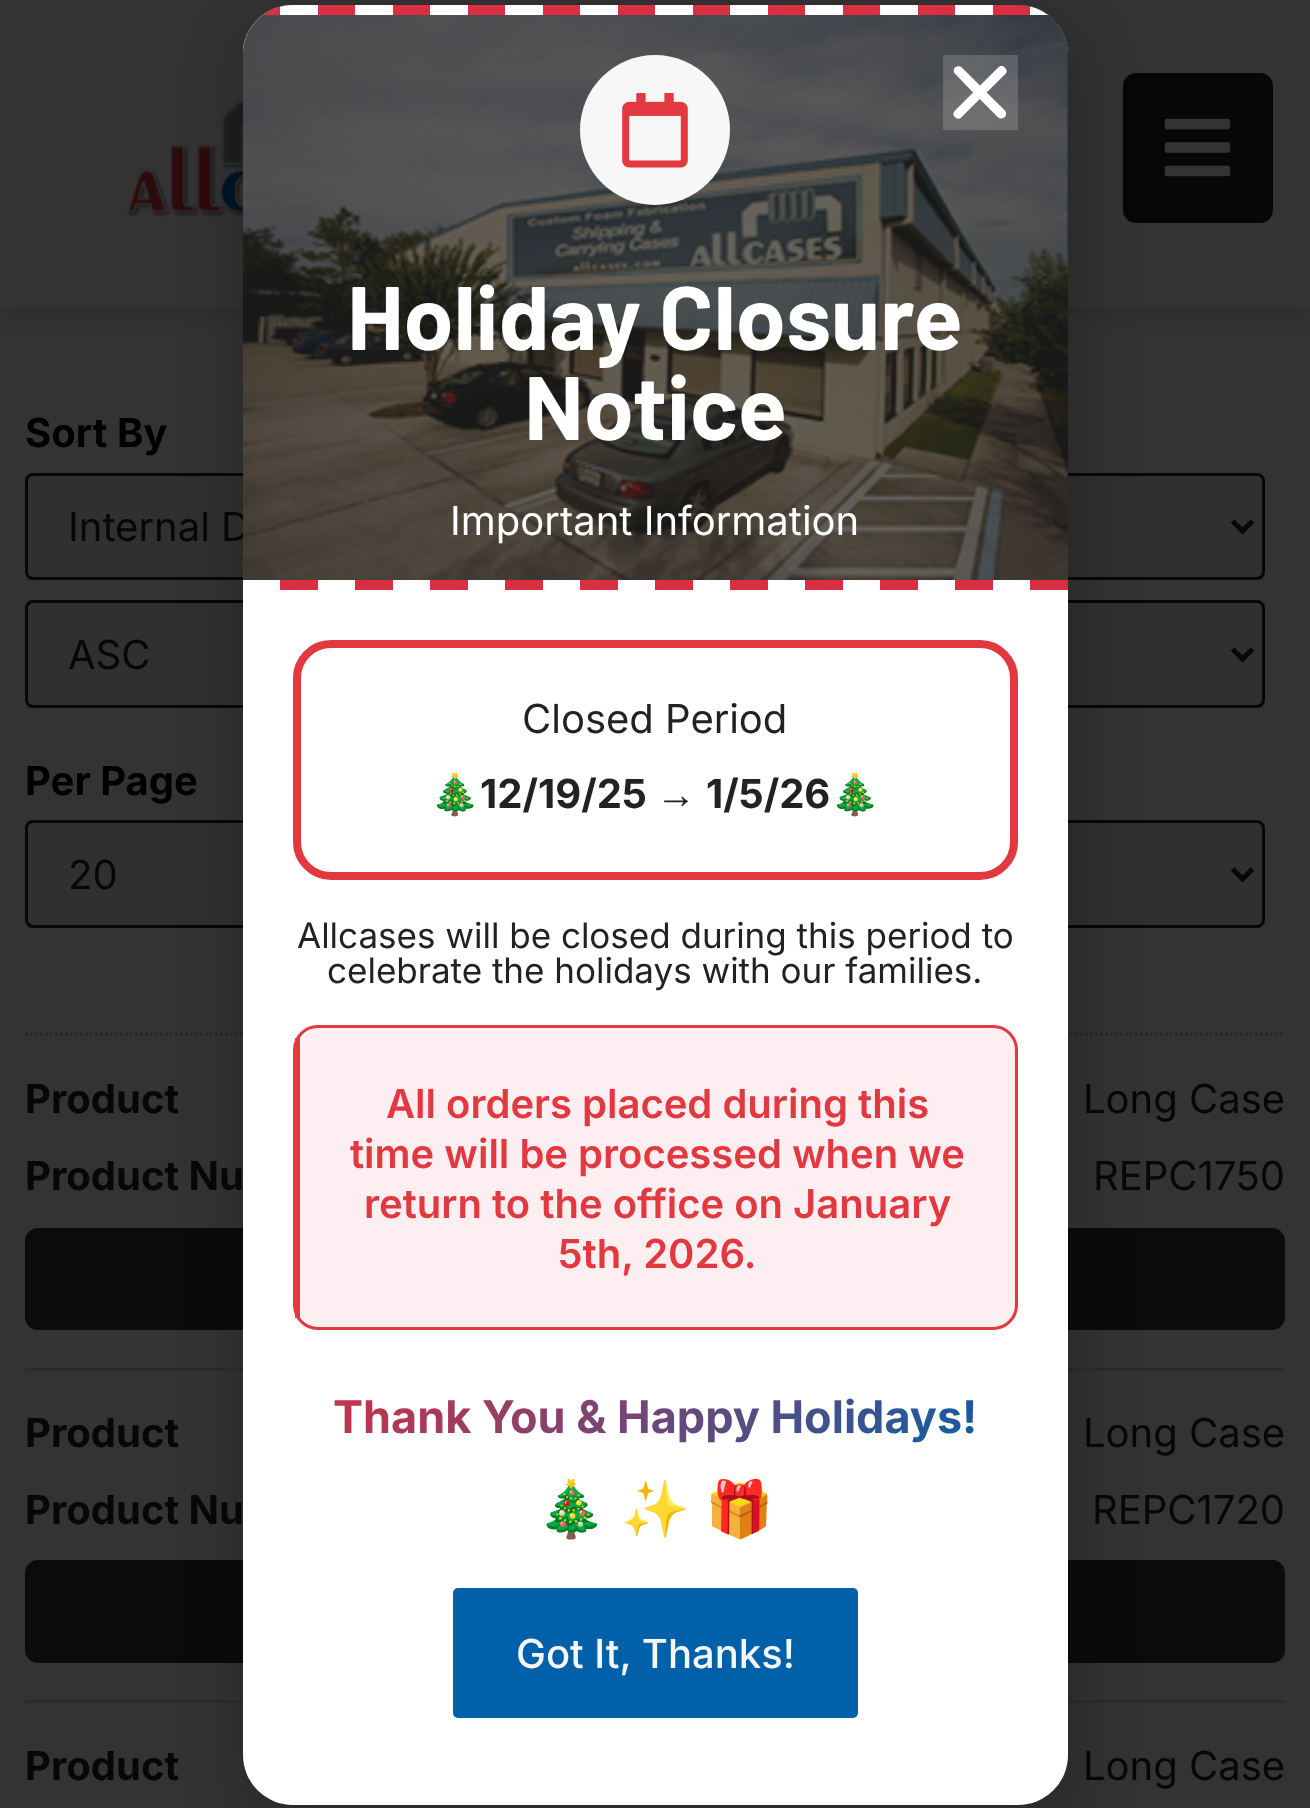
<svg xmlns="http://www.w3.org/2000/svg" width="1310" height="1808">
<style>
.a{font:bold 40px Inter;fill:#000}
.b{font:40px Inter;fill:#070707}
.c{font:500 40px Inter;fill:#f7f7f7}
.d{font:55px Noto Color Emoji;fill:#222}
.e{font:bold 45px Inter;fill:url(#g1)}
.f{font:600 40px Inter;fill:#e2383f}
.g{font:35px Inter;fill:#222}
.h{font:bold 40px Noto Color Emoji;fill:#222}
.i{font:bold 40px Inter;fill:#222}
.j{font:bold 40px Liberation Sans;fill:#222}
.k{font:40px Inter;fill:#222}
.l{font:40px Inter;fill:#fff}
.m{font:bold 90px Barlow;fill:#fff}
.n{font:bold 40px Inter;fill:#070707}
</style>
<defs>
<linearGradient id="g1" gradientUnits="userSpaceOnUse" x1="449" y1="1211" x2="861" y2="1624"><stop offset="0" stop-color="#da2e43"/><stop offset="1" stop-color="#0061aa"/></linearGradient>
</defs>
<rect width="100%" height="100%" fill="#333"/>
<path fill="#00000033" filter="blur(12.5px)" d="M0 0h1310v308H0z"/>
<path fill="#333" d="M0 0h1310v308H0z"/>
<image href="1.png" x="126" y="98" width="117" height="119"/>
<rect fill="#070707" x="1123" y="73" width="150" height="150" rx="13"/>
<image href="2.png" x="1164" y="118" width="67" height="59"/>
<path fill="none" stroke="#262626" stroke-width="2.5" stroke-dasharray="2.5 2.5" d="M25 1034h1260"/>
<rect fill="#303030" stroke="#070707" stroke-width="3" x="26.5" y="474.5" width="1237" height="104" rx="6.5"/>
<rect fill="#303030" stroke="#070707" stroke-width="3" x="26.5" y="601.5" width="1237" height="105" rx="6.5"/>
<rect fill="#303030" stroke="#070707" stroke-width="3" x="26.5" y="821.5" width="1237" height="105" rx="6.5"/>
<path fill="#2c2c2c" d="M25 1368h1260v3H25z"/>
<rect fill="#0a0b0c" x="25" y="1228" width="1260" height="102" rx="13"/>
<path fill="#2c2c2c" d="M25 1700h1260v3H25z"/>
<rect fill="#0a0b0c" x="25" y="1560" width="1260" height="103" rx="13"/>
<rect fill="#00000033" filter="blur(29px)" x="240" y="18" width="840" height="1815" rx="58"/>
<path fill="none" stroke="#070707" stroke-width="5" d="M1232.5 521l10 10l10-10"/>
<path fill="none" stroke="#070707" stroke-width="5" d="M1232.5 649l10 10l10-10"/>
<path fill="none" stroke="#070707" stroke-width="5" d="M1232.5 869l10 10l10-10"/>
<text class="a" x="25" y="447">Sort By</text>
<text class="b" x="68" y="541">Internal D</text>
<rect fill="#fff" x="243" y="5" width="825" height="1800" rx="50"/>
<path fill="#0061aa" d="M293 5h725c27.5 0 50 22.5 50 50v535h-825v-535c0-27.5 22.5-50 50-50z"/>
<image href="5.png" x="243" y="5" width="825" height="575"/>
<path fill="#222222b3" d="M293 5h725c27.5 0 50 22.5 50 50v535h-825v-535c0-27.5 22.5-50 50-50z"/>
<path fill="#ececec2e" d="M943 55h75v75H943z"/>
<image href="3.png" x="953" y="65" width="54" height="54"/>
<image href="7.png" x="243" y="580" width="825" height="10"/>
<image href="4.png" x="263" y="5" width="785" height="10"/>
<rect fill="#0061aa" x="453" y="1588" width="405" height="130" rx="5"/>
<text class="c" x="516" y="1668">Got It, Thanks!</text>
<text class="d" x="705" y="1528">🎁</text>
<text class="d" x="621" y="1528">✨</text>
<text class="d" x="537" y="1528">🎄</text>
<text class="e" x="333" y="1433">Thank You &amp; Happy Holidays!</text>
<path fill="#fdeff1" d="M318 1028h674c13 0 23 10 23 22v255c0 12-10 23-23 23h-674c-10 0-18-11-18-23v-255c0-12 8-22 18-22z"/>
<rect fill="none" stroke="#e2383f" stroke-width="3" x="294.5" y="1026.5" width="722" height="302" rx="23.5"/>
<text class="f" x="558" y="1268">5th, 2026.</text>
<text class="f" x="364" y="1218">return to the office on January</text>
<text class="f" x="350" y="1168">time will be processed when we</text>
<text class="f" x="386" y="1118">All orders placed during this</text>
<path fill="#e2383f" d="M295 1038h5v280H295z"/>
<text class="g" x="327" y="983">celebrate the holidays with our families.</text>
<text class="g" x="297" y="948">Allcases will be closed during this period to</text>
<rect fill="none" stroke="#e2383f" stroke-width="8" x="297" y="644" width="717" height="232" rx="34"/>
<text class="h" x="830" y="808">🎄</text>
<text class="i" x="706" y="808">1/5/26</text>
<text class="j" x="656" y="808">→</text>
<text class="i" x="480" y="808">12/19/25</text>
<text class="h" x="430" y="808">🎄</text>
<text class="k" x="522" y="733">Closed Period</text>
<text class="l" x="450" y="535">Important Information</text>
<text class="m" x="524" y="440">Notice</text>
<text class="m" x="347" y="350">Holiday Closure</text>
<circle fill="#f7f7f7" cx="655" cy="130" r="75"/>
<image href="6.png" x="622" y="93" width="66" height="75"/>
<text class="b" x="68" y="669">ASC</text>
<text class="a" x="25" y="795">Per Page</text>
<text class="b" x="68" y="889">20</text>
<text class="n" x="25" y="1113">Product</text>
<text class="b" x="1083" y="1113">Long Case</text>
<text class="n" x="25" y="1190">Product Nu</text>
<text class="b" x="1093" y="1190">REPC1750</text>
<text class="n" x="25" y="1447">Product</text>
<text class="b" x="1083" y="1447">Long Case</text>
<text class="n" x="25" y="1524">Product Nu</text>
<text class="b" x="1092" y="1524">REPC1720</text>
<text class="n" x="25" y="1780">Product</text>
<text class="b" x="1083" y="1780">Long Case</text>
</svg>
